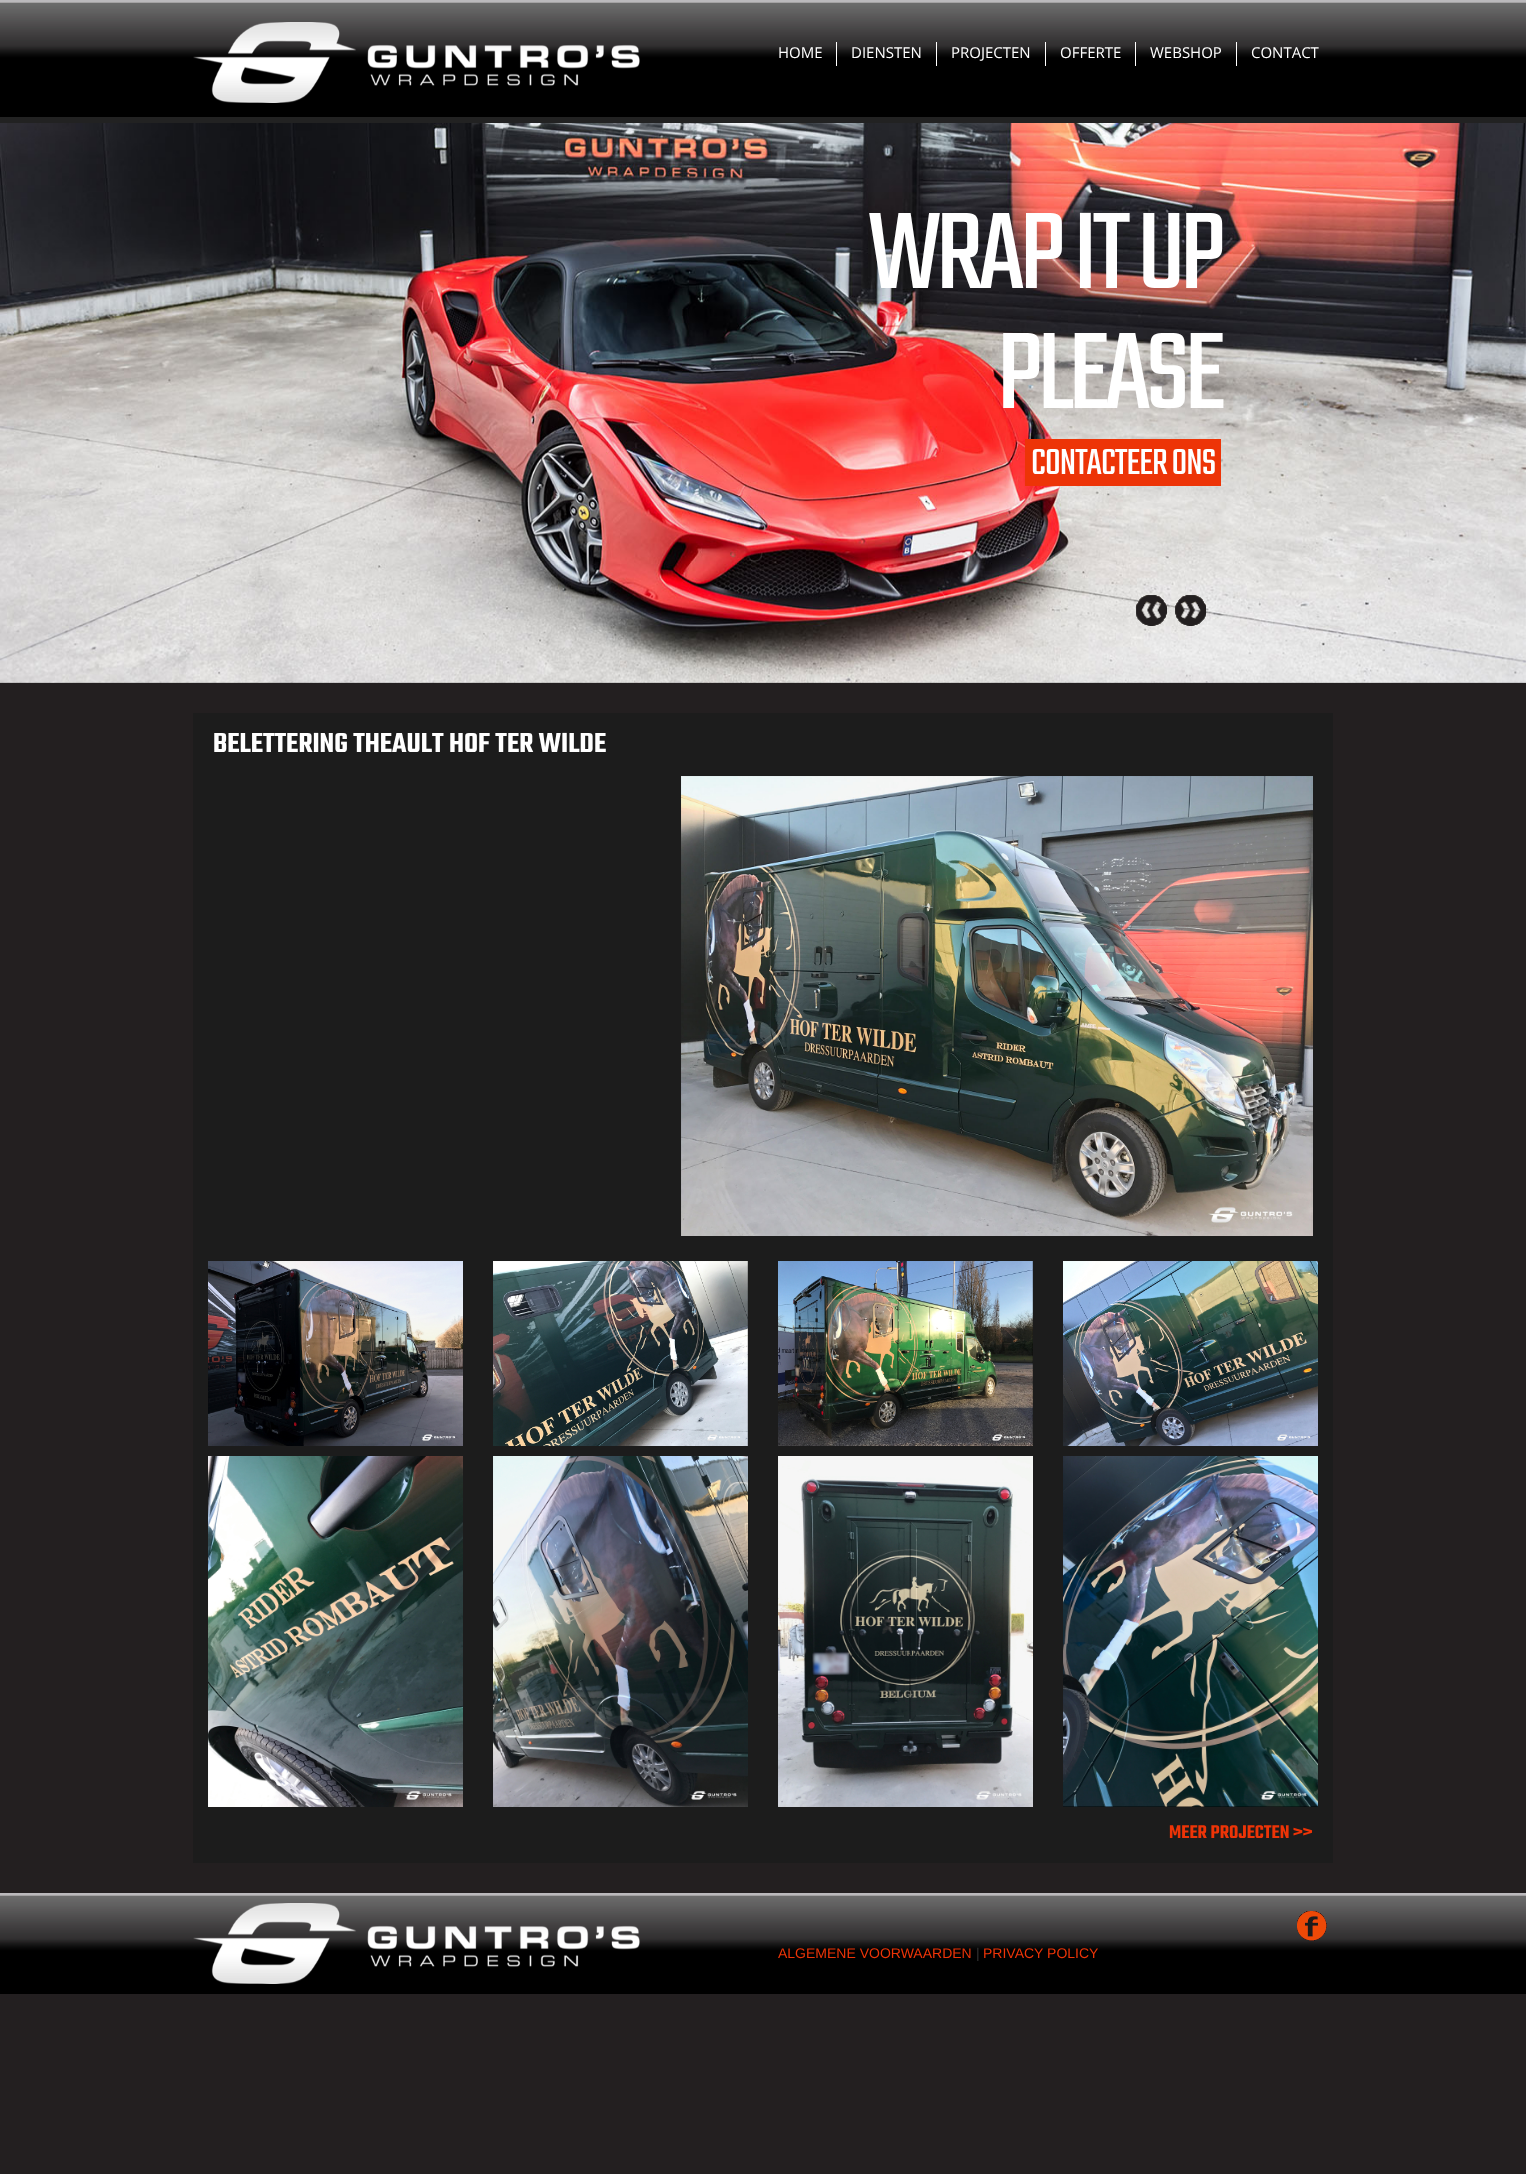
<svg xmlns="http://www.w3.org/2000/svg" width="1526" height="2174">
<style>
.a{font:15px Open Sans;fill:#fff}
.b{font:120px Teko;letter-spacing:-5px;fill:#fff}
.c{font:40px Teko;letter-spacing:-1px;fill:#fff}
.d{font:600 30px Teko;fill:#fff}
.e{font:600 20px Teko;fill:#ed3407}
.f{font:14px Liberation Sans;fill:#ed3407}
.g{font:14px Liberation Sans;fill:#333}
</style>
<rect width="100%" height="100%" fill="#231f20"/>
<path fill="#222" d="M0 117h1526v6H0z"/>
<image href="1.png" x="0" y="0" width="1526" height="117"/>
<image href="2.png" x="193" y="22" width="447" height="81"/>
<path fill="#fff" d="M836 42h1v24H836z"/>
<path fill="#fff" d="M936 42h1v24H936z"/>
<path fill="#fff" d="M1045 42h1v24H1045z"/>
<path fill="#fff" d="M1135 42h1v24H1135z"/>
<path fill="#fff" d="M1236 42h1v24H1236z"/>
<image href="3.png" x="0" y="123" width="1526" height="560"/>
<path fill="#ed3407" d="M1025 439h196v47H1025z"/>
<image href="4.png" x="1136" y="595" width="31" height="31"/>
<image href="5.png" x="1175" y="595" width="31" height="31"/>
<path fill="#1c1c1c" d="M193 713h1140v1150H193z"/>
<image href="6.png" x="681" y="776" width="632" height="460"/>
<image href="7.png" x="703" y="776" width="609" height="460"/>
<image href="8.png" x="208" y="1261" width="255" height="185"/>
<image href="9.png" x="493" y="1261" width="255" height="185"/>
<image href="10.png" x="778" y="1261" width="255" height="185"/>
<image href="11.png" x="1063" y="1261" width="255" height="185"/>
<image href="12.png" x="208" y="1456" width="255" height="351"/>
<image href="13.png" x="493" y="1456" width="255" height="351"/>
<image href="14.png" x="778" y="1456" width="255" height="351"/>
<image href="15.png" x="1063" y="1456" width="255" height="351"/>
<image href="16.png" x="0" y="1893" width="1526" height="101"/>
<image href="17.png" x="193" y="1903" width="447" height="81"/>
<image href="18.png" x="1297" y="1911" width="30" height="30"/>
<text class="a" x="778" y="58">HOME</text>
<text class="a" x="851" y="58">DIENSTEN</text>
<text class="a" x="951" y="58">PROJECTEN</text>
<text class="a" x="1060" y="58">OFFERTE</text>
<text class="a" x="1150" y="58">WEBSHOP</text>
<text class="a" x="1251" y="58">CONTACT</text>
<text class="b" x="868" y="288">WRAP IT UP</text>
<text class="b" x="997" y="408">PLEASE</text>
<text class="c" x="1031" y="474">CONTACTEER ONS</text>
<text class="d" x="213" y="752">BELETTERING THEAULT HOF TER WILDE</text>
<text class="e" x="1169" y="1838">MEER PROJECTEN &gt;&gt;</text>
<text class="f" x="778" y="1958">ALGEMENE VOORWAARDEN</text>
<text class="g" x="976" y="1958">|</text>
<text class="f" x="983" y="1958">PRIVACY POLICY</text>
</svg>
